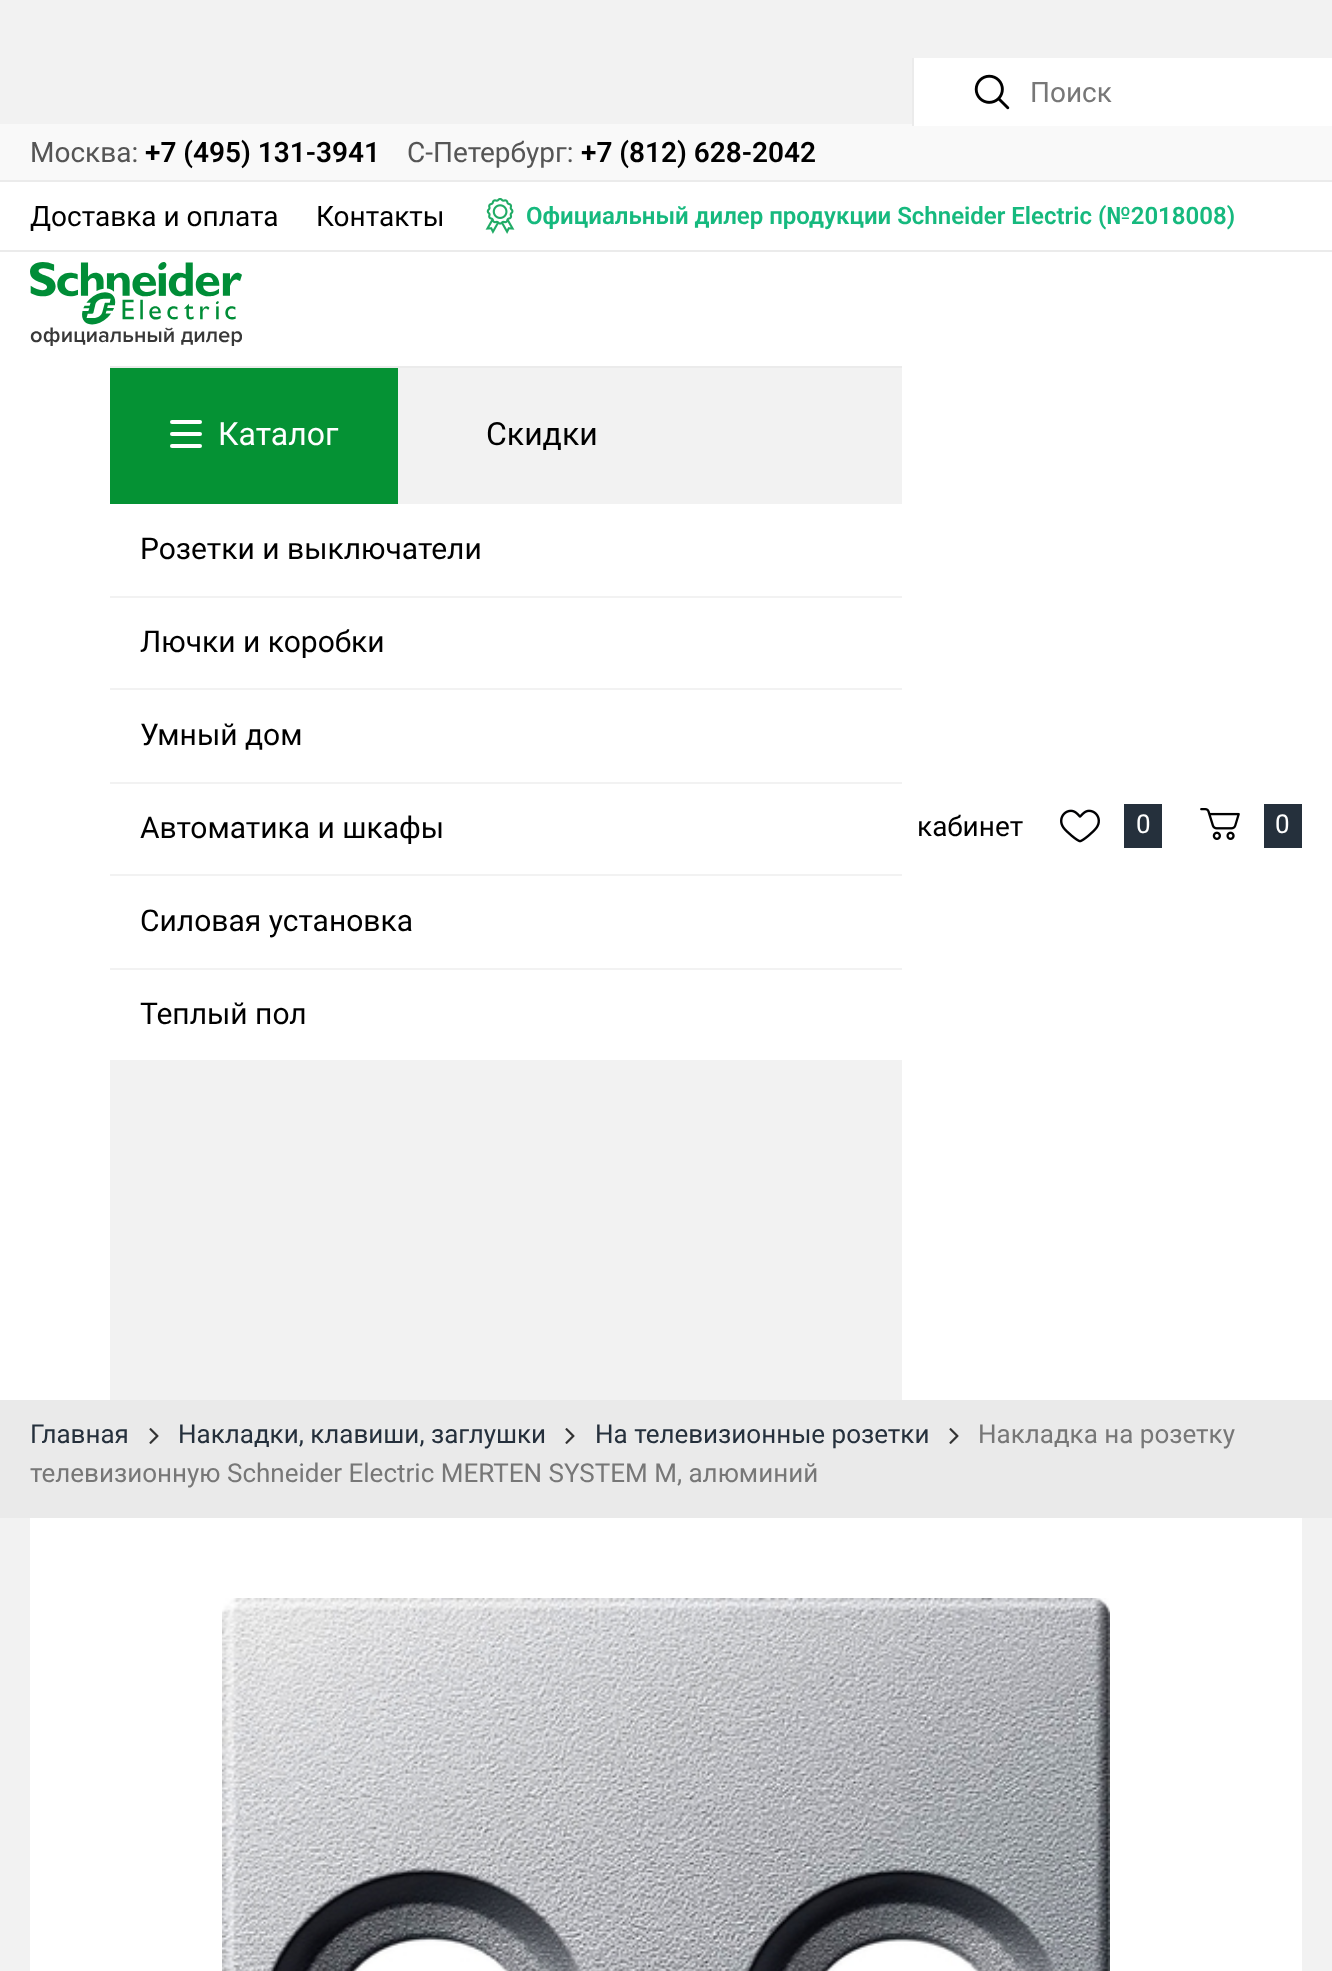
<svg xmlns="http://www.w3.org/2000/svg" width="1332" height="1971">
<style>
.a{font:28px Roboto;fill:#777}
.b{font:32px Roboto;fill:#fff}
.c{font:32px Roboto;fill:#000}
.d{font:30px Roboto;fill:#000}
.e{font:28px Roboto;fill:#000}
.f{font:26px Roboto;fill:#fff}
.g{font:28px Roboto;fill:#555}
.h{font:600 28px Roboto;fill:#000}
.i{font:600 24px Roboto;fill:#16b97e}
.j{font:26px Roboto;fill:#25303c}
.k{font:26px Roboto;fill:#777}
</style>
<rect width="100%" height="100%" fill="#f2f2f2"/>
<path fill="#fff" d="M0 182h1332v1218H0z"/>
<path fill="#f9f9f9" d="M0 124h1332v56H0z"/>
<path fill="#ebebeb" d="M912 58h2v68H912z"/>
<path fill="#fff" d="M914 58h418v68H914z"/>
<image href="1.png" x="974" y="74" width="36" height="36"/>
<image href="2.png" x="30" y="262" width="212" height="84"/>
<path fill="#f2f2f2" d="M110 368h792v1032H110z"/>
<path fill="#ebebeb" d="M110 366h792v2H110z"/>
<path fill="#059234" d="M110 368h288v136H110z"/>
<rect fill="#fff" x="170" y="432" width="32" height="4" rx="2"/>
<rect fill="#fff" x="170" y="420" width="32" height="4" rx="2"/>
<rect fill="#fff" x="170" y="444" width="32" height="4" rx="2"/>
<path fill="#fff" d="M110 504h792v92H110z"/>
<path fill="#fff" d="M110 598h792v90H110z"/>
<path fill="#fff" d="M110 690h792v92H110z"/>
<path fill="#fff" d="M110 784h792v90H110z"/>
<path fill="#fff" d="M110 876h792v92H110z"/>
<path fill="#fff" d="M110 970h792v90H110z"/>
<image href="3.png" x="1060" y="809" width="40" height="34"/>
<path fill="#25303c" d="M1124 804h38v44H1124z"/>
<image href="4.png" x="1200" y="808" width="40" height="32"/>
<path fill="#25303c" d="M1264 804h38v44H1264z"/>
<path fill="#ebebeb" d="M0 180h1332v2H0z"/>
<path fill="#ebebeb" d="M0 250h1332v2H0z"/>
<image href="5.png" x="485" y="198" width="30" height="36"/>
<path fill="#eaeaea" d="M0 1400h1332v118H0z"/>
<image href="6.png" x="149" y="1428" width="10" height="16"/>
<image href="6.png" x="565" y="1428" width="10" height="16"/>
<image href="6.png" x="949" y="1428" width="10" height="16"/>
<path fill="#fff" d="M30 1518h1272v453H30z"/>
<image href="7.png" x="222" y="1598" width="888" height="373"/>
<text class="a" x="1030" y="102">Поиск</text>
<text class="b" x="218" y="445">Каталог</text>
<text class="c" x="486" y="445">Скидки</text>
<text class="d" x="140" y="559">Розетки и выключатели</text>
<text class="d" x="140" y="652">Лючки и коробки</text>
<text class="d" x="140" y="745">Умный дом</text>
<text class="d" x="140" y="838">Автоматика и шкафы</text>
<text class="d" x="140" y="931">Силовая установка</text>
<text class="d" x="140" y="1024">Теплый пол</text>
<text class="e" x="917" y="836">кабинет</text>
<text class="f" x="1136" y="833">0</text>
<text class="f" x="1275" y="833">0</text>
<text class="g" x="30" y="162">Москва:</text>
<text class="h" x="145" y="162">+7 (495) 131-3941</text>
<text class="g" x="407" y="162">С-Петербург:</text>
<text class="h" x="581" y="162">+7 (812) 628-2042</text>
<text class="e" x="30" y="226">Доставка и оплата</text>
<text class="e" x="316" y="226">Контакты</text>
<text class="i" x="526" y="224">Официальный дилер продукции Schneider Electric (№2018008)</text>
<text class="j" x="30" y="1443">Главная</text>
<text class="j" x="178" y="1443">Накладки, клавиши, заглушки</text>
<text class="j" x="595" y="1443">На телевизионные розетки</text>
<text class="k" x="978" y="1443">Накладка на розетку</text>
<text class="k" x="30" y="1482">телевизионную Schneider Electric MERTEN SYSTEM M, алюминий</text>
</svg>
